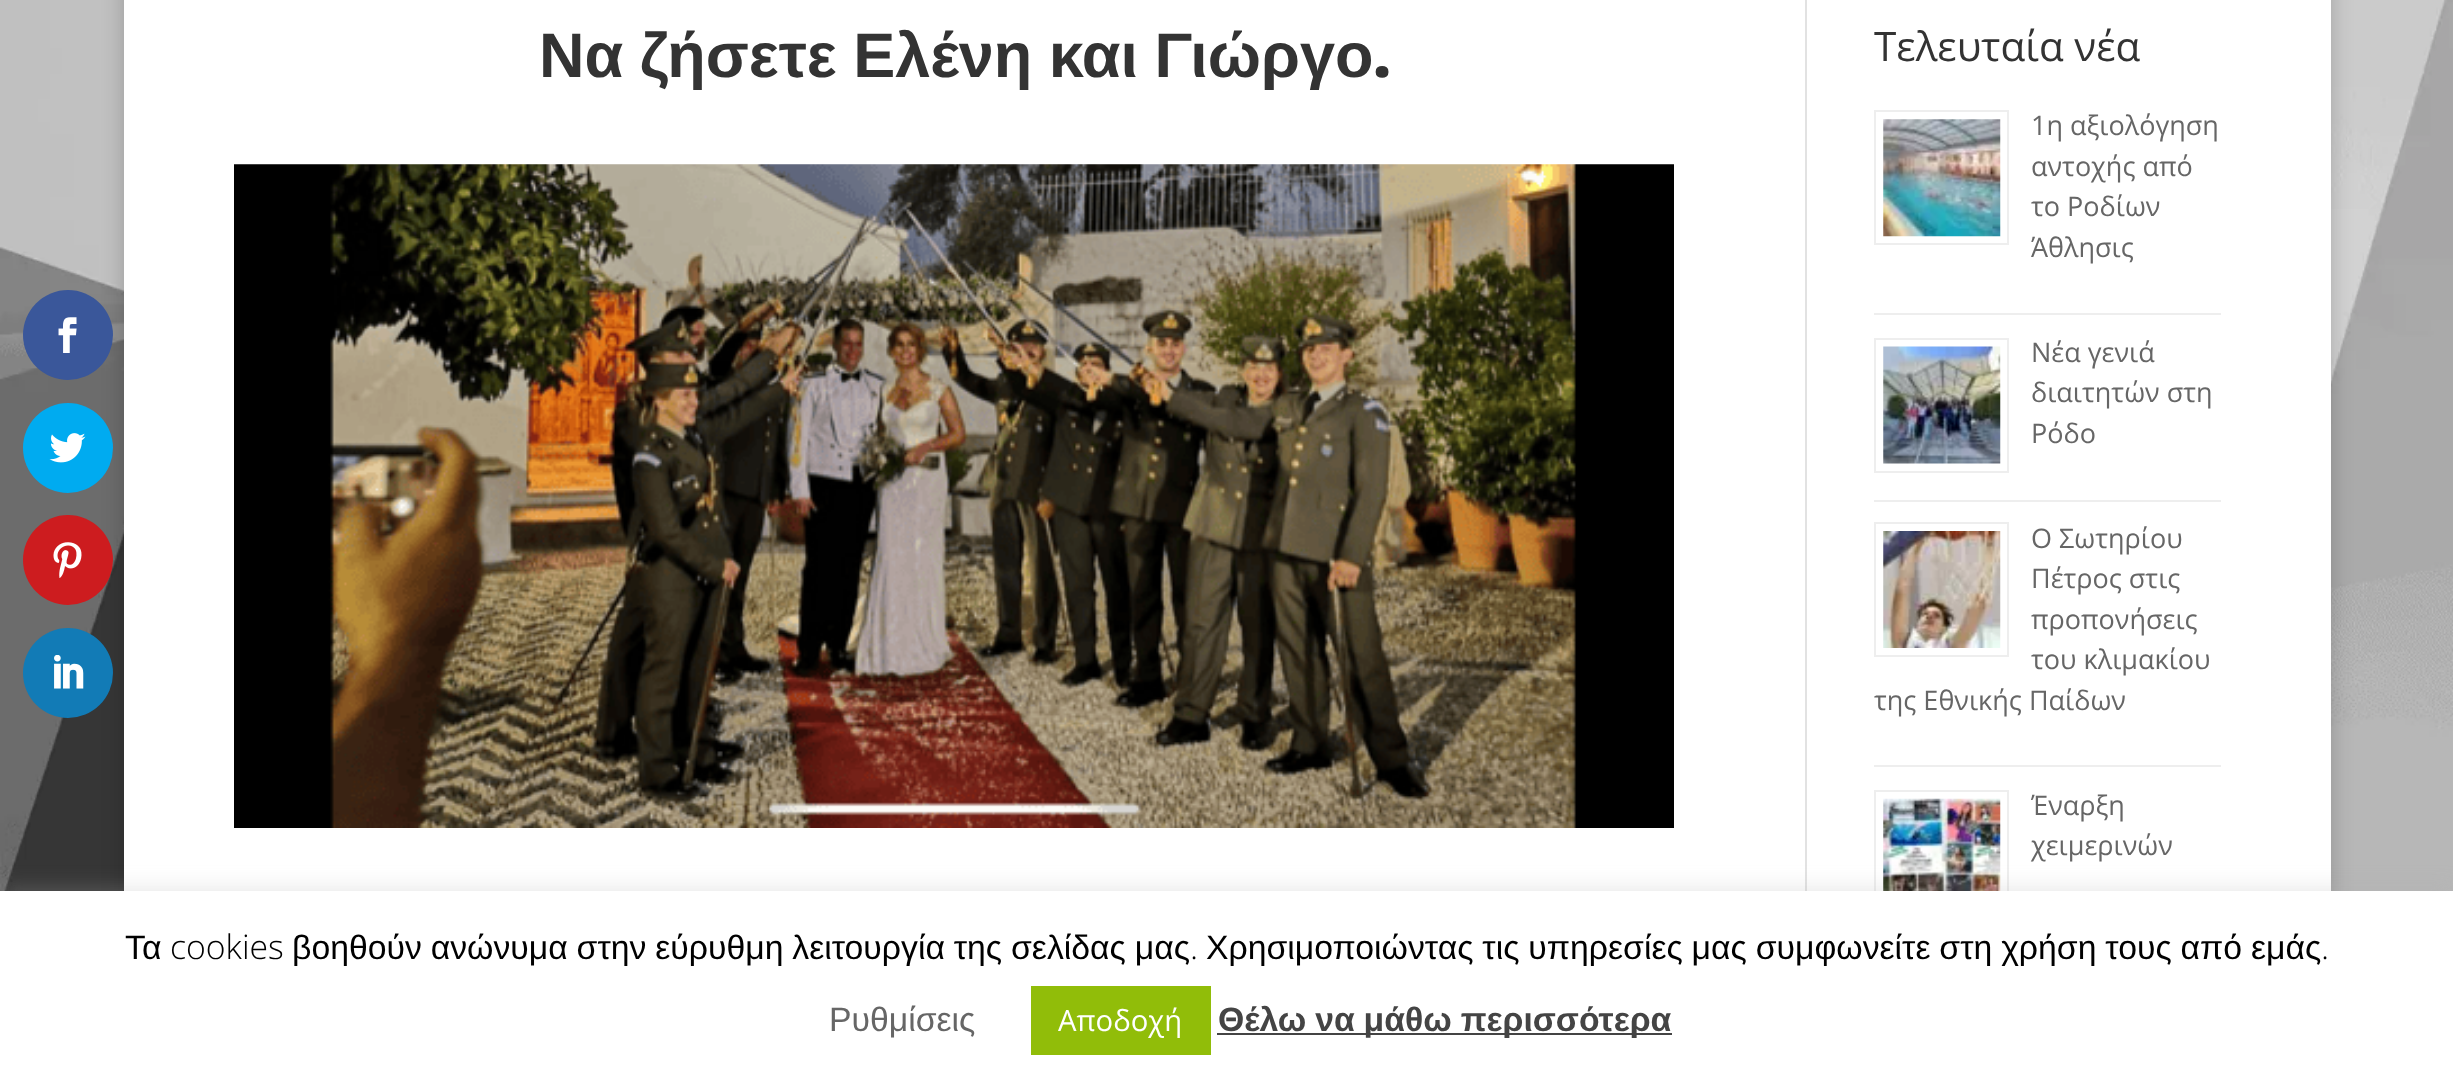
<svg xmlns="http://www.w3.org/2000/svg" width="2453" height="1081">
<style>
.a{font:bold 63px Liberation Sans;fill:#333}
.b{font:800 63px Open Sans;fill:#333}
.c{font:40.5px Open Sans;fill:#333}
.d{font:27px Open Sans;fill:#666}
.e{font:33.75px Liberation Sans;fill:#000}
.f{font:300 33.75px Open Sans;fill:#000}
.g{font:33.75px Liberation Sans;fill:#666}
.h{font:29.25px Open Sans;fill:#fff}
.i{font:bold 33.75px Liberation Sans;fill:#444}
</style>
<rect width="100%" height="100%" fill="#fff"/>
<image href="1.png" x="0" y="0" width="2453" height="891"/>
<path fill="#00000033" filter="blur(11px)" d="M124 -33h2207v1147H124z"/>
<circle fill="#3a579a" cx="68" cy="335" r="45"/>
<image href="2.png" x="58" y="317" width="19" height="36"/>
<circle fill="#00abf0" cx="68" cy="448" r="45"/>
<image href="3.png" x="49" y="433" width="37" height="30"/>
<circle fill="#cd1c1f" cx="68" cy="560" r="45"/>
<image href="4.png" x="53" y="542" width="29" height="36"/>
<circle fill="#127bb6" cx="68" cy="673" r="45"/>
<image href="5.png" x="54" y="655" width="30" height="34"/>
<path fill="#fff" d="M124 0h2207v891H124z"/>
<path fill="#e2e2e2" d="M1805 0h2v891H1805z"/>
<image href="6.png" x="234" y="164" width="1440" height="664"/>
<path fill="#eee" d="M1874 313h347v2H1874z"/>
<path fill="none" stroke="#eee" stroke-width="2" d="M1875 111h133v133H1875z"/>
<image href="7.png" x="1883" y="119" width="118" height="118"/>
<path fill="#eee" d="M1874 500h347v2H1874z"/>
<path fill="none" stroke="#eee" stroke-width="2" d="M1875 339h133v133H1875z"/>
<image href="8.png" x="1883" y="346" width="118" height="118"/>
<path fill="#eee" d="M1874 765h347v2H1874z"/>
<path fill="none" stroke="#eee" stroke-width="2" d="M1875 523h133v133H1875z"/>
<image href="9.png" x="1883" y="531" width="118" height="117"/>
<path fill="none" stroke="#eee" stroke-width="2" d="M1875 791h133v133H1875z"/>
<image href="10.png" x="1883" y="798" width="118" height="93"/>
<path fill="#acabab4d" filter="blur(11px)" d="M0 889h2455v191H0z"/>
<path fill="#fff" d="M0 891h2453v190H0z"/>
<path fill="#91bd09" d="M1031 986h180v69H1031z"/>
<path fill="#444" d="M1217 1033h455v2H1217z"/>
<text class="a" x="539" y="77" word-spacing="-1">Να ζήσετε Ελένη και Γιώργο</text>
<text class="b" x="1373" y="77">.</text>
<text class="c" x="1874" y="61">Τελευταία νέα</text>
<text class="d" x="2031" y="135">1η αξιολόγηση</text>
<text class="d" x="2031" y="176">αντοχής από</text>
<text class="d" x="2031" y="216">το Ροδίων</text>
<text class="d" x="2031" y="257">Άθλησις</text>
<text class="d" x="2031" y="362">Νέα γενιά</text>
<text class="d" x="2031" y="402">διαιτητών στη</text>
<text class="d" x="2031" y="443">Ρόδο</text>
<text class="d" x="2031" y="548">Ο Σωτηρίου</text>
<text class="d" x="2031" y="588">Πέτρος στις</text>
<text class="d" x="2031" y="629">προπονήσεις</text>
<text class="d" x="2031" y="669">του κλιμακίου</text>
<text class="d" x="1874" y="710">της Εθνικής Παίδων</text>
<text class="d" x="2031" y="815">Έναρξη</text>
<text class="d" x="2031" y="855">χειμερινών</text>
<text class="e" x="125" y="959">Τα</text>
<text class="f" x="170" y="959">cookies</text>
<text class="e" x="292" y="959" word-spacing="-0.5">βοηθούν ανώνυμα στην εύρυθμη λειτουργία της σελίδας μας</text>
<text class="f" x="1190" y="959">.</text>
<text class="e" x="1206" y="959" word-spacing="-0.5">Χρησιμοποιώντας τις υπηρεσίες μας συμφωνείτε στη χρήση τους από εμάς</text>
<text class="f" x="2321" y="959">.</text>
<text class="g" x="829" y="1031">Ρυθμίσεις</text>
<text class="h" x="1058" y="1031">Αποδοχή</text>
<text class="i" x="1218" y="1031" word-spacing="-0.5">Θέλω να μάθω περισσότερα</text>
</svg>
